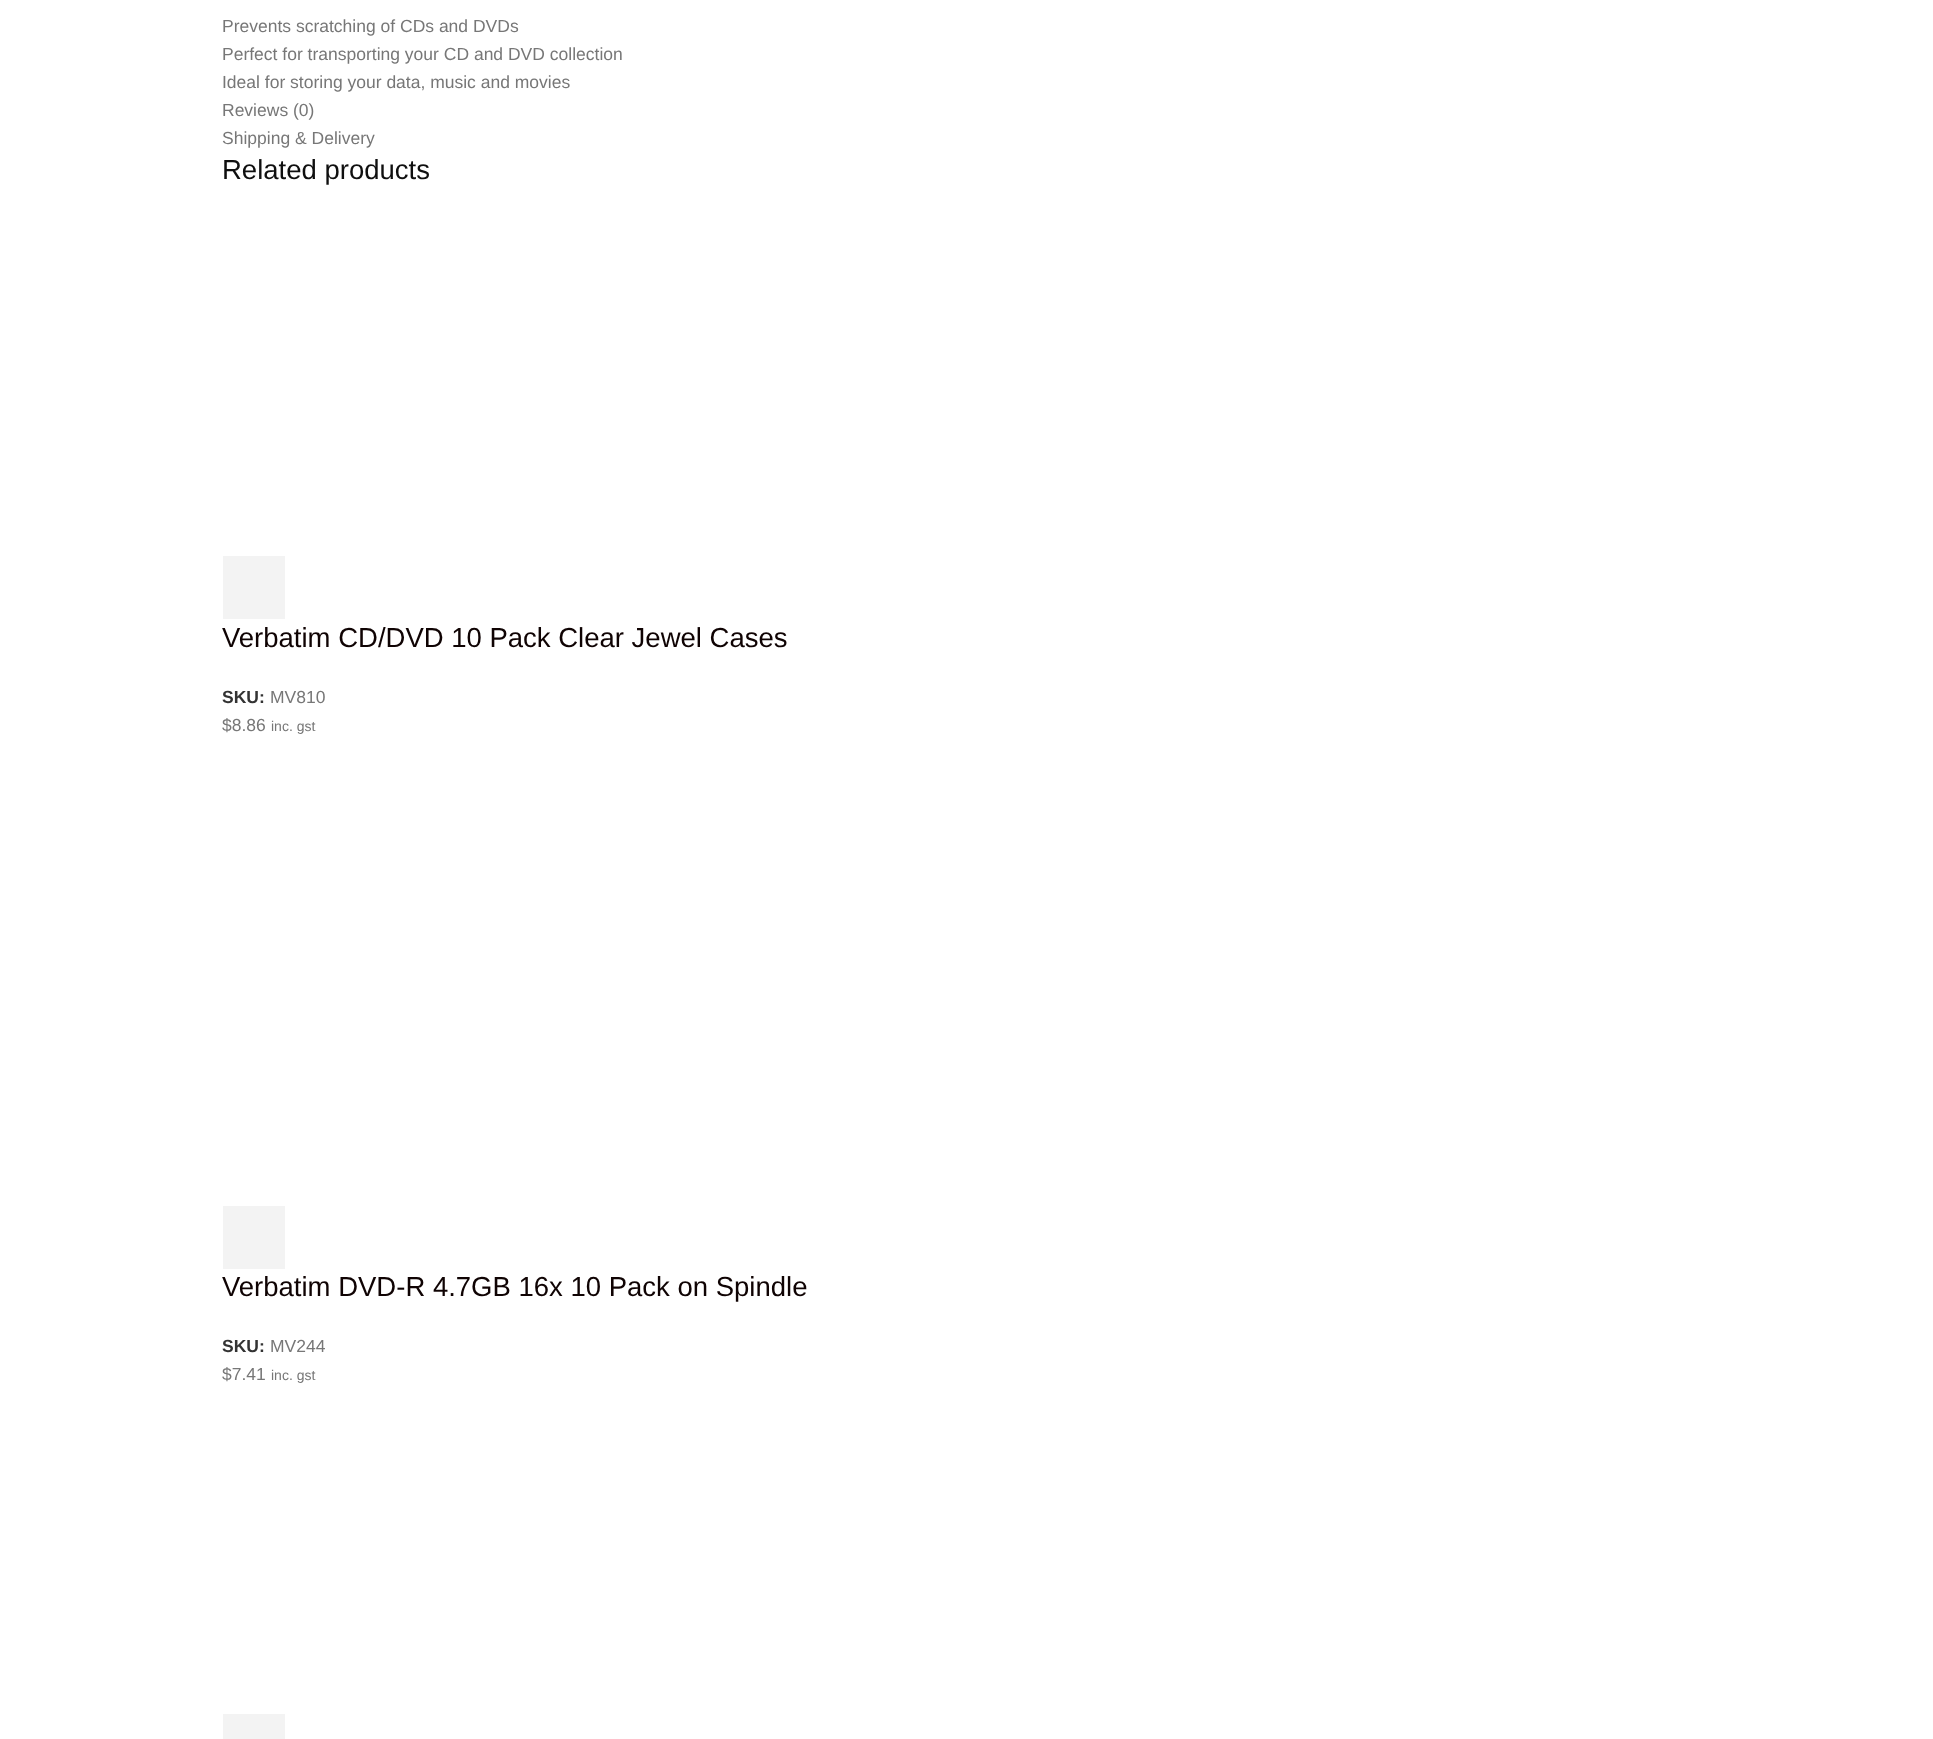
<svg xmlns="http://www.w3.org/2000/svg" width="1933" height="1739">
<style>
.a{font:17.5px Liberation Sans;fill:#777}
.b{font:27.5px Liberation Sans;fill:#0f0f0f}
.c{font:27.5px Liberation Sans;fill:#0f0303}
.d{font:bold 17.5px Liberation Sans;fill:#333}
.e{font:14px Liberation Sans;fill:#777}
</style>
<rect width="100%" height="100%" fill="#fff"/>
<path fill="#f3f3f3" d="M223 556h62v63H223z"/>
<path fill="#f3f3f3" d="M223 1206h62v63H223z"/>
<path fill="#f3f3f3" d="M223 1714h62v25H223z"/>
<text class="a" x="222" y="32">Prevents scratching of CDs and DVDs</text>
<text class="a" x="222" y="60">Perfect for transporting your CD and DVD collection</text>
<text class="a" x="222" y="88">Ideal for storing your data, music and movies</text>
<text class="a" x="222" y="116">Reviews (0)</text>
<text class="a" x="222" y="144">Shipping &amp; Delivery</text>
<text class="b" x="222" y="179">Related products</text>
<text class="c" x="222" y="647">Verbatim CD/DVD 10 Pack Clear Jewel Cases</text>
<text class="d" x="222" y="703">SKU:</text>
<text class="a" x="270" y="703">MV810</text>
<text class="a" x="222" y="731">$8.86</text>
<text class="e" x="271" y="731">inc. gst</text>
<text class="c" x="222" y="1296">Verbatim DVD-R 4.7GB 16x 10 Pack on Spindle</text>
<text class="d" x="222" y="1352">SKU:</text>
<text class="a" x="270" y="1352">MV244</text>
<text class="a" x="222" y="1380">$7.41</text>
<text class="e" x="271" y="1380">inc. gst</text>
</svg>
